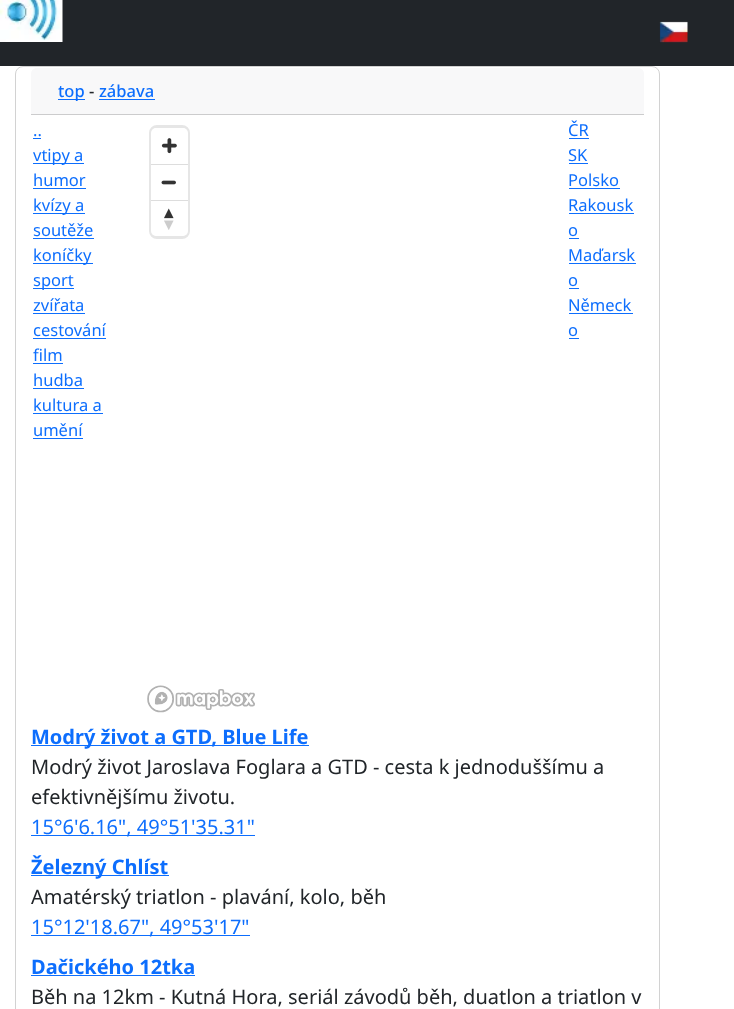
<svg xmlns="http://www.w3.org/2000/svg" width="734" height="1009">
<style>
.a{font:500 16.5px Noto Sans;fill:#0d6efd}
.b{font:500 16.5px Noto Sans;fill:#212529}
.c{font:16.5px Noto Sans;fill:#0d6efd}
.d{font:bold 20px Noto Sans;fill:#0d6efd}
.e{font:20px Noto Sans;fill:#212529}
.f{font:20px Noto Sans;fill:#0d6efd}
</style>
<rect width="100%" height="100%" fill="#fff"/>
<path fill="#212529" d="M0 0h734v66H0z"/>
<image href="1.png" x="0" y="0" width="63" height="42"/>
<image href="2.png" x="659" y="21" width="29" height="22"/>
<rect fill="none" stroke="#d2d2d2" x="15.5" y="66.5" width="644" height="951" rx="7.5"/>
<path fill="#f8f8f9" d="M37 68h601c3.5 0 6 2.5 6 6v41h-613v-41c0-3.5 2.5-6 6-6z"/>
<path fill="#cccccd" d="M31 114h613v1H31z"/>
<path fill="#0d6efd" d="M58 99h27v1H58z"/>
<path fill="#0d6efd" d="M99 99h56v1H99z"/>
<path fill="#0d6efd" d="M33 138h8v1H33z"/>
<path fill="#0d6efd" d="M33 163h51v1H33z"/>
<path fill="#0d6efd" d="M33 188h53v1H33z"/>
<path fill="#0d6efd" d="M33 213h52v1H33z"/>
<path fill="#0d6efd" d="M33 238h61v1H33z"/>
<path fill="#0d6efd" d="M33 263h60v1H33z"/>
<path fill="#0d6efd" d="M33 288h41v1H33z"/>
<path fill="#0d6efd" d="M33 313h52v1H33z"/>
<path fill="#0d6efd" d="M33 338h73v1H33z"/>
<path fill="#0d6efd" d="M33 363h30v1H33z"/>
<path fill="#0d6efd" d="M33 388h51v1H33z"/>
<path fill="#0d6efd" d="M33 413h70v1H33z"/>
<path fill="#0d6efd" d="M33 438h50v1H33z"/>
<rect fill="none" stroke="#e6e6e6" stroke-width="3" x="150.5" y="126.5" width="38" height="111" rx="6.5"/>
<rect fill="#fff" x="151" y="128" width="37" height="108" rx="5"/>
<image href="3.png" x="161" y="138" width="16" height="16"/>
<path fill="#ddd" d="M151 164h37v1H151z"/>
<image href="4.png" x="161" y="180" width="15" height="5"/>
<path fill="#ddd" d="M151 200h37v1H151z"/>
<image href="5.png" x="164" y="208" width="10" height="22"/>
<image href="6.png" x="147" y="685" width="108" height="28"/>
<path fill="#0d6efd" d="M569 138h20v1H569z"/>
<path fill="#0d6efd" d="M569 163h19v1H569z"/>
<path fill="#0d6efd" d="M569 188h51v1H569z"/>
<path fill="#0d6efd" d="M569 213h65v1H569z"/>
<path fill="#0d6efd" d="M569 238h10v1H569z"/>
<path fill="#0d6efd" d="M569 263h67v1H569z"/>
<path fill="#0d6efd" d="M569 288h10v1H569z"/>
<path fill="#0d6efd" d="M569 313h64v1H569z"/>
<path fill="#0d6efd" d="M569 338h10v1H569z"/>
<path fill="#0d6efd" d="M31 745h278v1H31z"/>
<path fill="#0d6efd" d="M31 835h224v1H31z"/>
<path fill="#0d6efd" d="M31 875h138v1H31z"/>
<path fill="#0d6efd" d="M31 935h219v1H31z"/>
<path fill="#0d6efd" d="M31 975h164v1H31z"/>
<text class="a" x="58" y="97">top</text>
<text class="b" x="89" y="97">-</text>
<text class="a" x="99" y="97">zábava</text>
<text class="c" x="33" y="136">..</text>
<text class="c" x="33" y="161">vtipy a</text>
<text class="c" x="33" y="186">humor</text>
<text class="c" x="33" y="211">kvízy a</text>
<text class="c" x="33" y="236">soutěže</text>
<text class="c" x="33" y="261">koníčky</text>
<text class="c" x="33" y="286">sport</text>
<text class="c" x="33" y="311">zvířata</text>
<text class="c" x="33" y="336">cestování</text>
<text class="c" x="33" y="361">film</text>
<text class="c" x="33" y="386">hudba</text>
<text class="c" x="33" y="411">kultura a</text>
<text class="c" x="33" y="436">umění</text>
<text class="c" x="568" y="136">ČR</text>
<text class="c" x="568" y="161">SK</text>
<text class="c" x="568" y="186">Polsko</text>
<text class="c" x="568" y="211">Rakousk</text>
<text class="c" x="568" y="236">o</text>
<text class="c" x="568" y="261">Maďarsk</text>
<text class="c" x="568" y="286">o</text>
<text class="c" x="568" y="311">Německ</text>
<text class="c" x="568" y="336">o</text>
<text class="d" x="31" y="744">Modrý život a GTD, Blue Life</text>
<text class="e" x="31" y="774">Modrý život Jaroslava Foglara a GTD - cesta k jednoduššímu a</text>
<text class="e" x="31" y="804">efektivnějšímu životu.</text>
<text class="f" x="31" y="834">15°6'6.16", 49°51'35.31"</text>
<text class="d" x="31" y="874">Železný Chlíst</text>
<text class="e" x="31" y="904">Amatérský triatlon - plavání, kolo, běh</text>
<text class="f" x="31" y="934">15°12'18.67", 49°53'17"</text>
<text class="d" x="31" y="974">Dačického 12tka</text>
<text class="e" x="31" y="1004">Běh na 12km - Kutná Hora, seriál závodů běh, duatlon a triatlon v</text>
</svg>
